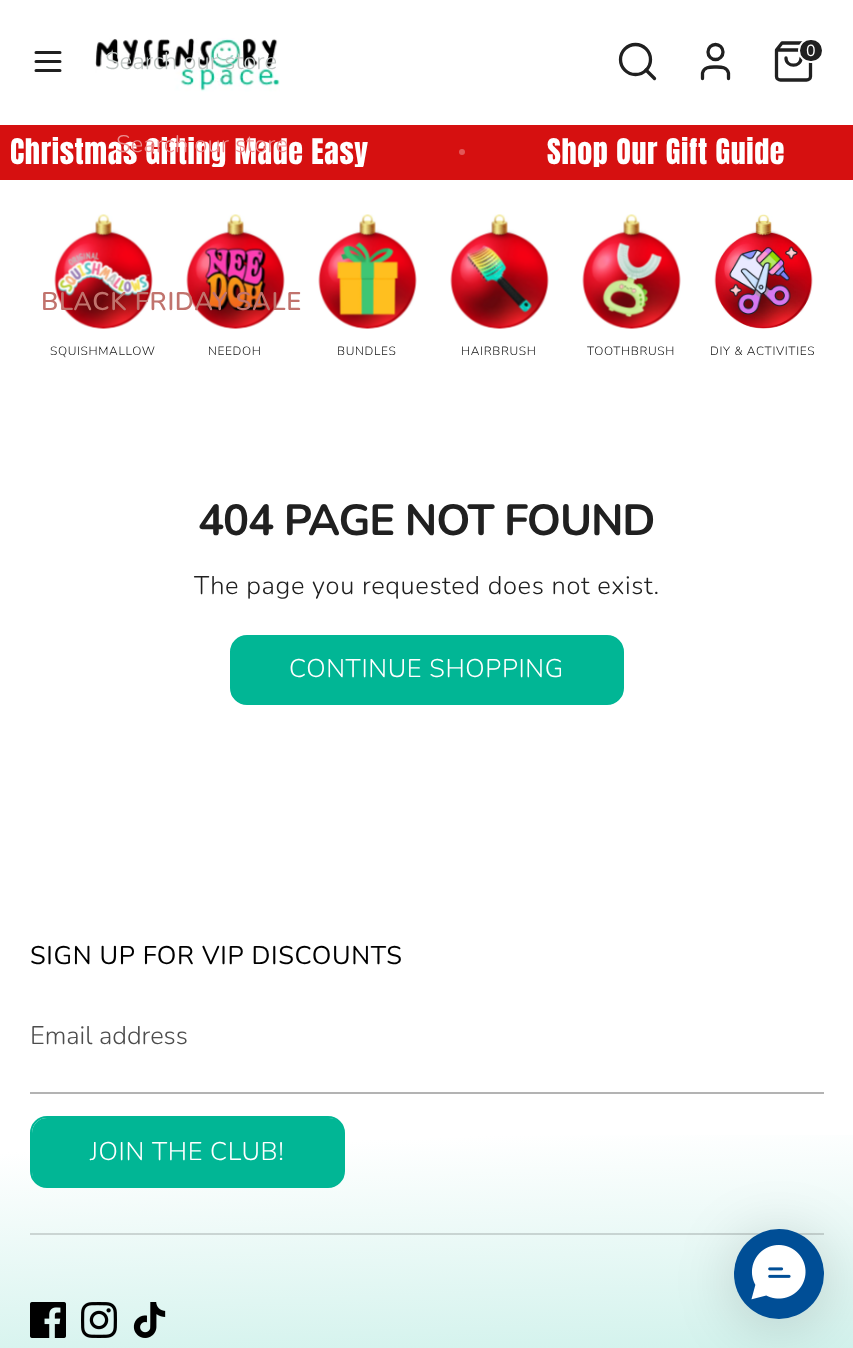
<svg xmlns="http://www.w3.org/2000/svg" width="853" height="1348">
<style>
.a{font:300 24px Nunito;fill:#bfc5c3}
.b{font:16px Nunito;fill:#fff}
.c{font:600 25.5px Nunito;letter-spacing:0.65px;fill:#c1736d}
.d{font:30px Anton;letter-spacing:0.65px;fill:#fff}
.e{font:300 24px Nunito;fill:#ec8f8f}
.f{font:300 12px Nunito;letter-spacing:0.65px;fill:#121212}
.g{font:bold 43.5px Nunito;letter-spacing:-1.1px;fill:#202020}
.h{font:300 25.5px Nunito;letter-spacing:0.65px;fill:#202020}
.i{font:300 25.5px Nunito;letter-spacing:0.65px;fill:#fff}
.j{font:25.5px Nunito;letter-spacing:0.65px;fill:#000}
.k{font:300 25.5px Nunito;fill:#4d4d4d}
</style>
<defs>
<linearGradient id="g1" gradientUnits="userSpaceOnUse" x1="395" y1="864" x2="459" y2="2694"><stop offset="0.15" stop-color="#fff"/><stop offset="0.85" stop-color="#01b695"/></linearGradient>
<linearGradient id="g2" gradientUnits="userSpaceOnUse" x1="395" y1="864" x2="459" y2="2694"><stop offset="0.15" stop-color="#d9d9d9"/><stop offset="0.85" stop-color="#019b7f"/></linearGradient>
<clipPath id="clip1"><path d="M11 137h832v30H11z"/></clipPath>
</defs>
<rect width="100%" height="100%" fill="#fff"/>
<image href="1.png" x="95" y="38" width="185" height="54"/>
<path fill="none" stroke="#202020" stroke-width="3" stroke-linecap="round" stroke-linejoin="round" d="M36 61.5h24m-24-9h24m-24 18h24"/>
<circle fill="none" stroke="#202020" stroke-width="3.3" cx="635.5" cy="59.5" r="15"/>
<path fill="none" stroke="#202020" stroke-width="3.3" stroke-linecap="round" stroke-linejoin="round" d="M654.5 78.5l-8.5-8.5"/>
<path fill="none" stroke="#202020" stroke-width="3.3" stroke-linecap="round" stroke-linejoin="round" d="M728.5 78.5v-5.5c-1.5-6.5-8-6-13-6c-5 0-11.5-.5-13 6v5.5"/>
<circle fill="none" stroke="#202020" stroke-width="3.3" cx="715.5" cy="52" r="7.5"/>
<path fill="none" stroke="#202020" stroke-width="3.3" stroke-linecap="round" stroke-linejoin="round" d="M782 43l-5.5 7v26.5c0 2 2 3.5 4 3.5h26c2 0 4-1.5 4-3.5v-26.5l-5.5-7zm-5.5 7h34m-9.5 8c0 9.5-15 9.5-15 0"/>
<rect fill="#202020" stroke="#fff" stroke-width="2" x="799" y="39" width="24" height="23" rx="11.5"/>
<path fill="#d61010" d="M0 125h853v55H0z"/>
<circle fill="#e25858" cx="462" cy="152" r="3"/>
<image href="2.png" x="54" y="214" width="99" height="115"/>
<image href="3.png" x="186" y="214" width="99" height="115"/>
<image href="4.png" x="318" y="214" width="99" height="115"/>
<image href="5.png" x="450" y="214" width="99" height="115"/>
<image href="6.png" x="582" y="214" width="99" height="115"/>
<image href="7.png" x="714" y="214" width="99" height="115"/>
<rect fill="none" stroke="#01b695" stroke-width="2" x="231" y="636" width="392" height="68" rx="16"/>
<rect fill="#01b695" x="231" y="636" width="392" height="68" rx="15"/>
<path fill="url(#g1)" d="M0 1135h853v213H0z"/>
<path fill="url(#g2)" d="M30 1233h794v2H30z"/>
<path fill="#b3b3b3" d="M30 1092h794v2H30z"/>
<rect fill="none" stroke="#01b695" stroke-width="2" x="31" y="1117" width="313" height="70" rx="16"/>
<rect fill="#01b695" x="32" y="1118" width="312" height="69" rx="15"/>
<image href="8.png" x="30" y="1302" width="36" height="36"/>
<image href="9.png" x="81" y="1302" width="36" height="36"/>
<image href="10.png" x="133" y="1302" width="33" height="36"/>
<rect fill="#00000029" filter="blur(30px)" x="734" y="1236" width="90" height="90" rx="45"/>
<circle fill="#004e96" cx="779" cy="1274" r="45"/>
<image href="11.png" x="751" y="1245" width="55" height="55"/>
<text class="a" x="105" y="69">Search our store</text>
<text class="b" x="806" y="56">0</text>
<text class="c" x="41" y="310">BLACK FRIDAY SALE</text>
<g clip-path="url(#clip1)">
<text class="d" x="10" y="164">Christmas Gifting Made Easy</text>
</g>
<text class="e" x="116" y="152">Search our store</text>
<g clip-path="url(#clip1)">
<text class="d" x="547" y="164">Shop Our Gift Guide</text>
</g>
<text class="f" x="50" y="355">SQUISHMALLOW</text>
<text class="f" x="208" y="355">NEEDOH</text>
<text class="f" x="337" y="355">BUNDLES</text>
<text class="f" x="461" y="355">HAIRBRUSH</text>
<text class="f" x="587" y="355">TOOTHBRUSH</text>
<text class="f" x="710" y="355">DIY &amp; ACTIVITIES</text>
<text class="g" x="198" y="535">404 PAGE NOT FOUND</text>
<text class="h" x="194" y="594">The page you requested does not exist.</text>
<text class="i" x="289" y="677">CONTINUE SHOPPING</text>
<text class="j" x="30" y="964">SIGN UP FOR VIP DISCOUNTS</text>
<text class="k" x="30" y="1044">Email address</text>
<text class="i" x="90" y="1160">JOIN THE CLUB!</text>
</svg>
